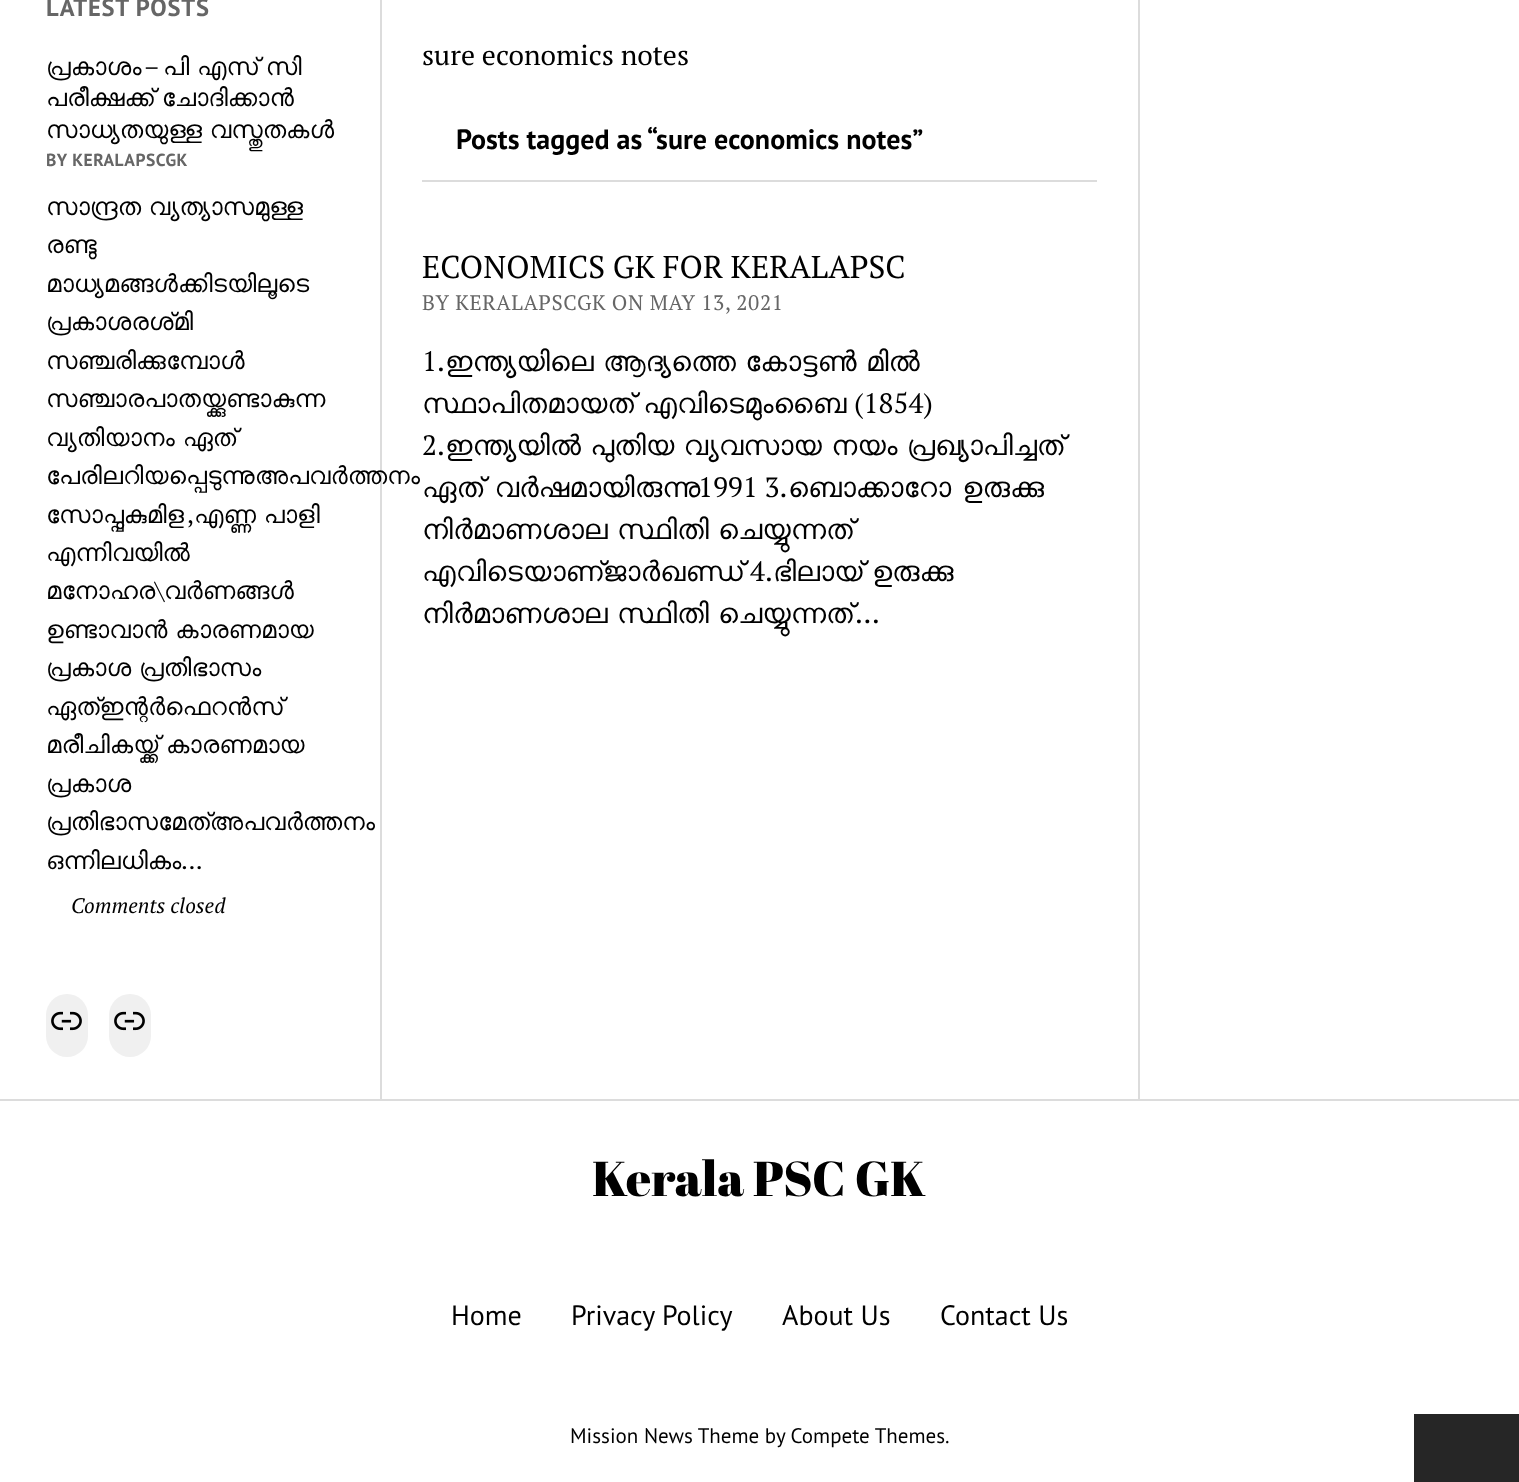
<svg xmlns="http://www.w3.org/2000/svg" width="1519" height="1482">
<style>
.a{font:bold 24.5px PT Sans;letter-spacing:0.75px;fill:#666}
.b{font:24.5px FreeSans;fill:#000}
.c{font:24.5px PT Serif;fill:#000}
.d{font:bold 17.5px PT Sans;letter-spacing:0.5px;fill:#666}
.e{font:italic 21px PT Serif;fill:#000}
.f{font:28px PT Serif;fill:#000}
.g{font:bold 28px PT Sans;fill:#000}
.h{font:31.5px PT Serif;fill:#000}
.i{font:21px PT Serif;letter-spacing:0.6px;fill:#666}
.j{font:28px FreeSans;fill:#000}
.k{font:49px Abril Fatface;fill:#000}
.l{font:28px PT Sans;fill:#000}
.m{font:21px PT Sans;fill:#000}
</style>
<rect width="100%" height="100%" fill="#fff"/>
<rect fill="#f0f0f0" x="46" y="994" width="42" height="63" rx="21"/>
<image href="1.png" x="51" y="1011" width="31" height="20"/>
<rect fill="#f0f0f0" x="109" y="994" width="42" height="63" rx="21"/>
<image href="1.png" x="114" y="1011" width="31" height="20"/>
<path fill="#dcdcdc" d="M422 180h675v2H422z"/>
<path fill="#dcdcdc" d="M380 0h2v1099H380z"/>
<path fill="#dcdcdc" d="M1138 0h2v1099H1138z"/>
<path fill="#dcdcdc" d="M0 1099h1519v2H0z"/>
<path fill="#262626" d="M1414 1414h105v68H1414z"/>
<text class="a" x="46" y="16">LATEST POSTS</text>
<text class="b" x="46" y="75">പ്രകാശം</text>
<text class="c" x="144" y="75">–</text>
<text class="b" x="163" y="75" word-spacing="-2">പി എസ് സി</text>
<text class="b" x="46" y="106" word-spacing="-2">പരീക്ഷക്ക് ചോദിക്കാൻ</text>
<text class="b" x="46" y="138" word-spacing="-2">സാധ്യതയുള്ള വസ്തുതകൾ</text>
<text class="d" x="46" y="166">BY KERALAPSCGK</text>
<text class="b" x="46" y="215" word-spacing="-2">സാന്ദ്രത വ്യത്യാസമുള്ള</text>
<text class="b" x="46" y="253">രണ്ടു</text>
<text class="b" x="46" y="292">മാധ്യമങ്ങൾക്കിടയിലൂടെ</text>
<text class="b" x="46" y="330">പ്രകാശരശ്‌മി</text>
<text class="b" x="46" y="369">സഞ്ചരിക്കുമ്പോൾ</text>
<text class="b" x="46" y="407">സഞ്ചാരപാതയ്ക്കുണ്ടാകുന്ന</text>
<text class="b" x="46" y="446" word-spacing="-2">വ്യതിയാനം ഏത്</text>
<text class="b" x="46" y="484">പേരിലറിയപ്പെടുന്നുഅപവർത്തനം</text>
<text class="b" x="46" y="523">സോപ്പുകുമിള</text>
<text class="c" x="187" y="523">,</text>
<text class="b" x="194" y="523" word-spacing="-2">എണ്ണ പാളി</text>
<text class="b" x="46" y="561">എന്നിവയിൽ</text>
<text class="b" x="46" y="599">മനോഹര</text>
<text class="c" x="155" y="599">\</text>
<text class="b" x="164" y="599">വർണങ്ങൾ</text>
<text class="b" x="46" y="638" word-spacing="-2">ഉണ്ടാവാൻ കാരണമായ</text>
<text class="b" x="46" y="676" word-spacing="-2">പ്രകാശ പ്രതിഭാസം</text>
<text class="b" x="46" y="715">ഏത്ഇന്റർഫെറൻസ്</text>
<text class="b" x="46" y="753" word-spacing="-2">മരീചികയ്ക്ക് കാരണമായ</text>
<text class="b" x="46" y="792">പ്രകാശ</text>
<text class="b" x="46" y="830">പ്രതിഭാസമേത്അപവർത്തനം</text>
<text class="b" x="46" y="869">ഒന്നിലധികം</text>
<text class="c" x="181" y="869">...</text>
<text class="e" x="71" y="913">Comments closed</text>
<text class="f" x="422" y="65">sure economics notes</text>
<text class="g" x="456" y="149">Posts tagged as “sure economics notes”</text>
<text class="h" x="422" y="278">ECONOMICS GK FOR KERALAPSC</text>
<text class="i" x="422" y="310">BY KERALAPSCGK ON MAY 13, 2021</text>
<text class="f" x="422" y="371">1.</text>
<text class="j" x="445" y="371" word-spacing="-2">ഇന്ത്യയിലെ ആദ്യത്തെ കോട്ടൺ മിൽ</text>
<text class="j" x="422" y="413" word-spacing="-2">സ്ഥാപിതമായത് എവിടെമുംബൈ</text>
<text class="f" x="854" y="413">(1854)</text>
<text class="f" x="422" y="455">2.</text>
<text class="j" x="445" y="455" word-spacing="-2">ഇന്ത്യയിൽ പുതിയ വ്യവസായ നയം പ്രഖ്യാപിച്ചത്</text>
<text class="j" x="422" y="497">ഏത് വർഷമായിരുന്നു</text>
<text class="f" x="698" y="497">1991 3.</text>
<text class="j" x="788" y="497">ബൊക്കാറോ ഉരുക്കു</text>
<text class="j" x="422" y="539" word-spacing="-2">നിർമാണശാല സ്ഥിതി ചെയ്യുന്നത്</text>
<text class="j" x="422" y="581">എവിടെയാണ്ജാർഖണ്ഡ്</text>
<text class="f" x="750" y="581">4.</text>
<text class="j" x="773" y="581" word-spacing="-2">ഭിലായ് ഉരുക്കു</text>
<text class="j" x="422" y="623" word-spacing="-2">നിർമാണശാല സ്ഥിതി ചെയ്യുന്നത്</text>
<text class="f" x="855" y="623">…</text>
<text class="k" x="592" y="1196">Kerala PSC GK</text>
<text class="l" x="451" y="1325">Home</text>
<text class="l" x="571" y="1325">Privacy Policy</text>
<text class="l" x="782" y="1325">About Us</text>
<text class="l" x="940" y="1325">Contact Us</text>
<text class="m" x="570" y="1443">Mission News Theme by Compete Themes.</text>
</svg>
